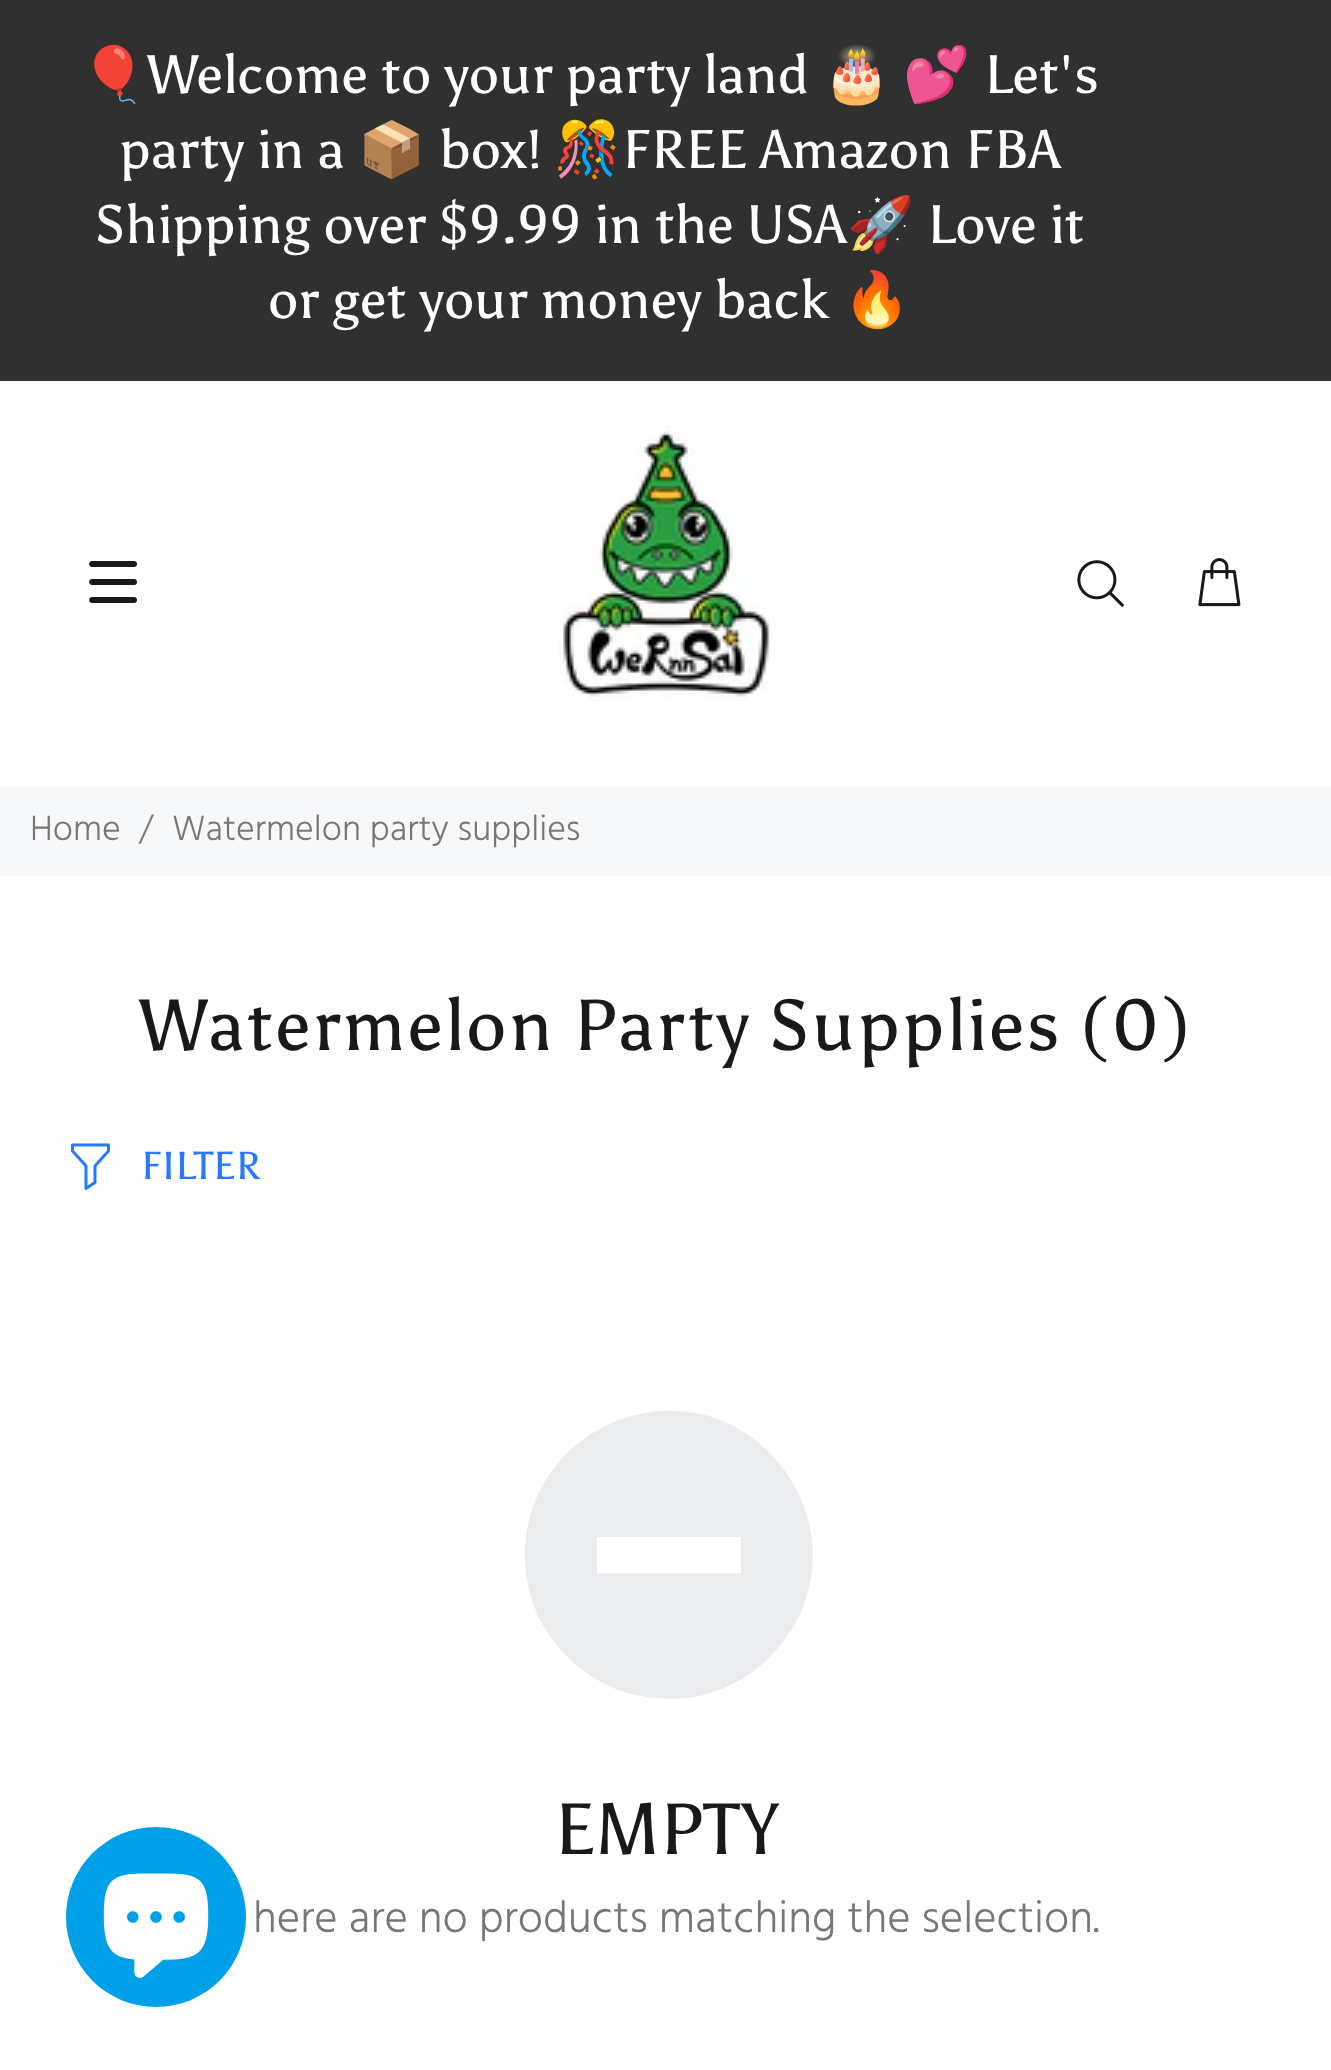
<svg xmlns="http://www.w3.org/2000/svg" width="1331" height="2070">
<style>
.a{font:54px Noto Color Emoji;fill:#fff}
.b{font:54px Asul;fill:#fff}
.c{font:300 36px Hind;fill:#777}
.d{font:72px Asul;letter-spacing:2.15px;fill:#191919}
.e{font:39px Asul;fill:#2879fe}
.f{font:72px Asul;fill:#191919}
.g{font:300 45px Hind;fill:#777}
</style>
<rect width="100%" height="100%" fill="#fff"/>
<path fill="#303030" d="M0 0h1331v381H0z"/>
<image href="1.png" x="89" y="561" width="48" height="42"/>
<image href="2.png" x="559" y="426" width="211" height="275"/>
<image href="3.png" x="1077" y="560" width="47" height="47"/>
<image href="4.png" x="1198" y="558" width="43" height="49"/>
<path fill="#f7f8fa" d="M0 786h1331v90H0z"/>
<image href="5.png" x="70" y="1143" width="40" height="47"/>
<path fill="#ebecee" d="M725 1422c69 31 106 110 79 182c-6 17-16 32-27 45c-21 25-51 42-83 48c-27 4-56 1-81-9c-29-13-53-34-69-61c-41-72-14-162 59-200c18-9 38-15 58-16c22-1 44 2 64 11zm16 115h-144v36h144z"/>
<circle fill="#00a0e9" cx="156" cy="1917" r="90"/>
<image href="6.png" x="103" y="1873" width="106" height="105"/>
<text class="a" x="80" y="93">🎈</text>
<text class="b" x="147" y="93" word-spacing="1">Welcome to your party land</text>
<text class="a" x="823" y="93">🎂</text>
<text class="a" x="903" y="93">💕</text>
<text class="b" x="984" y="93">Let's</text>
<text class="b" x="119" y="168" word-spacing="1">party in a</text>
<text class="a" x="358" y="168">📦</text>
<text class="b" x="439" y="168">box!</text>
<text class="a" x="554" y="168">🎊</text>
<text class="b" x="622" y="168" word-spacing="1">FREE Amazon FBA</text>
<text class="b" x="95" y="243" word-spacing="1">Shipping over $9.99 in the USA</text>
<text class="a" x="847" y="243">🚀</text>
<text class="b" x="927" y="243" word-spacing="1">Love it</text>
<text class="b" x="268" y="318" word-spacing="1">or get your money back</text>
<text class="a" x="843" y="318">🔥</text>
<text class="c" x="30" y="840">Home</text>
<text class="c" x="139" y="840">/</text>
<text class="c" x="172" y="840">Watermelon party supplies</text>
<text class="d" x="139" y="1050">Watermelon Party Supplies (0)</text>
<text class="e" x="141" y="1179">FILTER</text>
<text class="f" x="554" y="1854">EMPTY</text>
<text class="g" x="253" y="1932">here are no products matching the selection.</text>
</svg>
